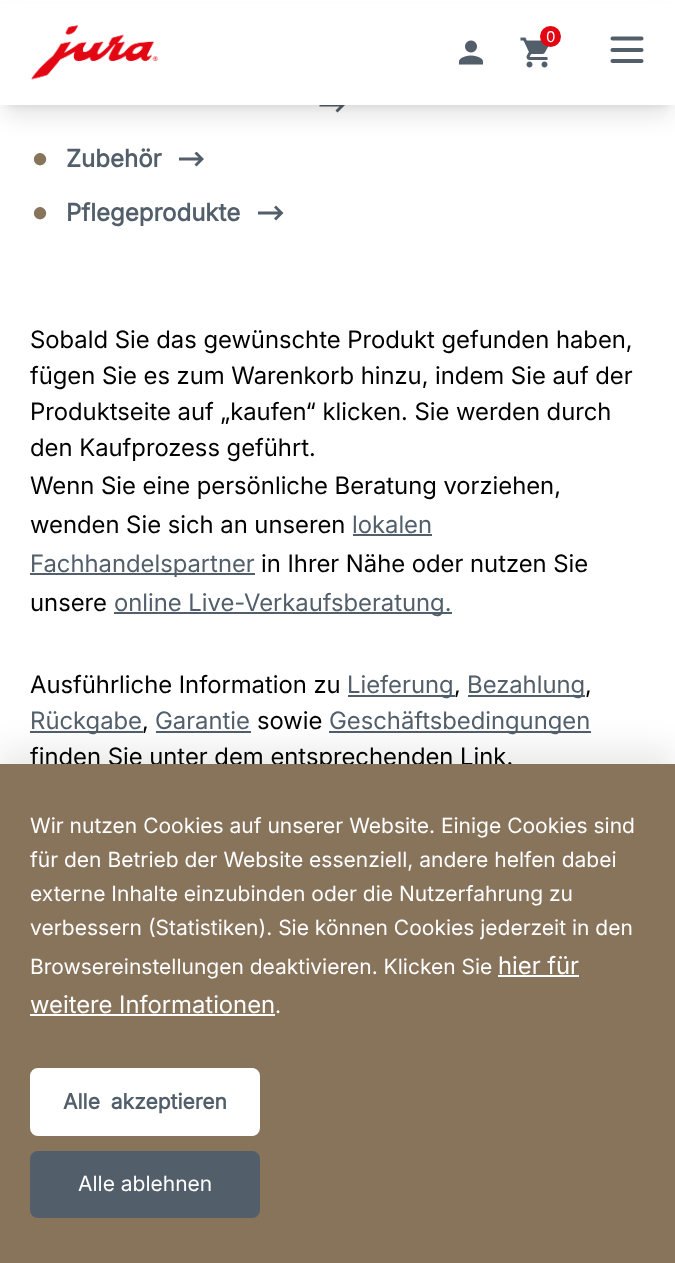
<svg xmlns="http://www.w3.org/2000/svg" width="675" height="1263">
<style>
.a{font:15px 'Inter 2';fill:#fff}
.b{font:bold 36px 'Inter 2';fill:#88735b}
.c{font:bold 24px Inter;fill:#525f6b}
.d{font:24px Inter;fill:#000}
.e{font:24px Inter;fill:#525f6b}
.f{font:21px 'Inter 2';fill:#fff}
.g{font:24px Inter;fill:#fff}
.h{font:bold 21px Inter;fill:#525f6b}
</style>
<defs>
<clipPath id="clip1"><path d="M179 152h25v15H179z"/></clipPath>
</defs>
<rect width="100%" height="100%" fill="#fff"/>
<path fill="#525f6b" d="M337.5 97.5l-2 2l4 4h-20v3h20l-4 4l2 2l7.5-7.5z"/>
<path fill="#0000001a" filter="blur(4.5px)" d="M6 12h663v93H6z"/>
<path fill="#0000001a" filter="blur(11px)" d="M5 20h666v96H5z"/>
<path fill="#fff" d="M0 4h675v101H0z"/>
<image href="1.png" x="31" y="25" width="128" height="55"/>
<image href="2.png" x="459" y="40" width="24" height="25"/>
<image href="3.png" x="520" y="37" width="29" height="31"/>
<circle fill="#e30613" cx="550.5" cy="36.5" r="10.5"/>
<path fill="none" stroke="#525f6b" stroke-width="4.1" stroke-linecap="round" d="M612.5 38.5h29m-29 11.5h29m-29 11h29"/>
<g clip-path="url(#clip1)">
<path fill="#525f6b" d="M196.5 151.5l-2 2l4 4h-20v3h20l-4 4l2 2l7.5-7.5z"/>
</g>
<path fill="#525f6b" d="M276 205.5l-2 2l4 4h-20v3h20l-4 4l2 2l7.5-7.5z"/>
<path fill="#525f6b" d="M353 534h79v2H353z"/>
<path fill="#525f6b" d="M30 573h225v2H30z"/>
<path fill="#525f6b" d="M114 612h338v2H114z"/>
<path fill="#525f6b" d="M348 695h107v2H348z"/>
<path fill="#525f6b" d="M468 695h117v2H468z"/>
<path fill="#525f6b" d="M30 731h113v2H30z"/>
<path fill="#525f6b" d="M156 731h95v2H156z"/>
<path fill="#525f6b" d="M329 731h262v2H329z"/>
<path fill="#00000014" filter="blur(15px)" d="M0 747h675v500H0z"/>
<text class="a" x="546" y="42">0</text>
<text class="b" x="30" y="170">•</text>
<text class="c" x="66" y="167">Zubehör</text>
<text class="b" x="30" y="224">•</text>
<text class="c" x="66" y="221">Pflegeprodukte</text>
<text class="d" x="30" y="348">Sobald Sie das gewünschte Produkt gefunden haben,</text>
<text class="d" x="30" y="384">fügen Sie es zum Warenkorb hinzu, indem Sie auf der</text>
<text class="d" x="30" y="420">Produktseite auf „kaufen“ klicken. Sie werden durch</text>
<text class="d" x="30" y="456">den Kaufprozess geführt.</text>
<text class="d" x="30" y="494">Wenn Sie eine persönliche Beratung vorziehen,</text>
<text class="d" x="30" y="533">wenden Sie sich an unseren</text>
<text class="e" x="352" y="533">lokalen</text>
<text class="e" x="30" y="572">Fachhandelspartner</text>
<text class="d" x="261" y="572">in Ihrer Nähe oder nutzen Sie</text>
<text class="d" x="30" y="611">unsere</text>
<text class="e" x="114" y="611">online Live-Verkaufsberatung.</text>
<text class="d" x="30" y="693">Ausführliche Information zu</text>
<text class="e" x="347" y="693">Lieferung</text>
<text class="d" x="454" y="693">,</text>
<text class="e" x="467" y="693">Bezahlung</text>
<text class="d" x="585" y="693">,</text>
<text class="e" x="30" y="729">Rückgabe</text>
<text class="d" x="142" y="729">,</text>
<text class="e" x="155" y="729">Garantie</text>
<text class="d" x="257" y="729">sowie</text>
<text class="e" x="329" y="729">Geschäftsbedingungen</text>
<text class="d" x="30" y="765">finden Sie unter dem entsprechenden Link.</text>
<path fill="#88735b" d="M0 764h675v499H0z"/>
<text class="f" x="30" y="833">Wir nutzen Cookies auf unserer Website. Einige Cookies sind</text>
<text class="f" x="30" y="867">für den Betrieb der Website essenziell, andere helfen dabei</text>
<text class="f" x="30" y="901">externe Inhalte einzubinden oder die Nutzerfahrung zu</text>
<text class="f" x="30" y="935">verbessern (Statistiken). Sie können Cookies jederzeit in den</text>
<text class="f" x="30" y="974">Browsereinstellungen deaktivieren. Klicken Sie</text>
<text class="g" x="498" y="974">hier für</text>
<path fill="#fff" d="M498 975h81v2H498z"/>
<text class="g" x="30" y="1013">weitere Informationen</text>
<path fill="#fff" d="M30 1014h245v2H30z"/>
<text class="f" x="275" y="1013">.</text>
<rect fill="#fff" stroke="#fff" stroke-width="3" x="31.5" y="1069.5" width="227" height="65" rx="6.5"/>
<text class="h" x="63" y="1109" word-spacing="5">Alle akzeptieren</text>
<rect fill="#525f6b" x="30" y="1151" width="230" height="67" rx="8"/>
<text class="f" x="78" y="1191">Alle ablehnen</text>
</svg>
